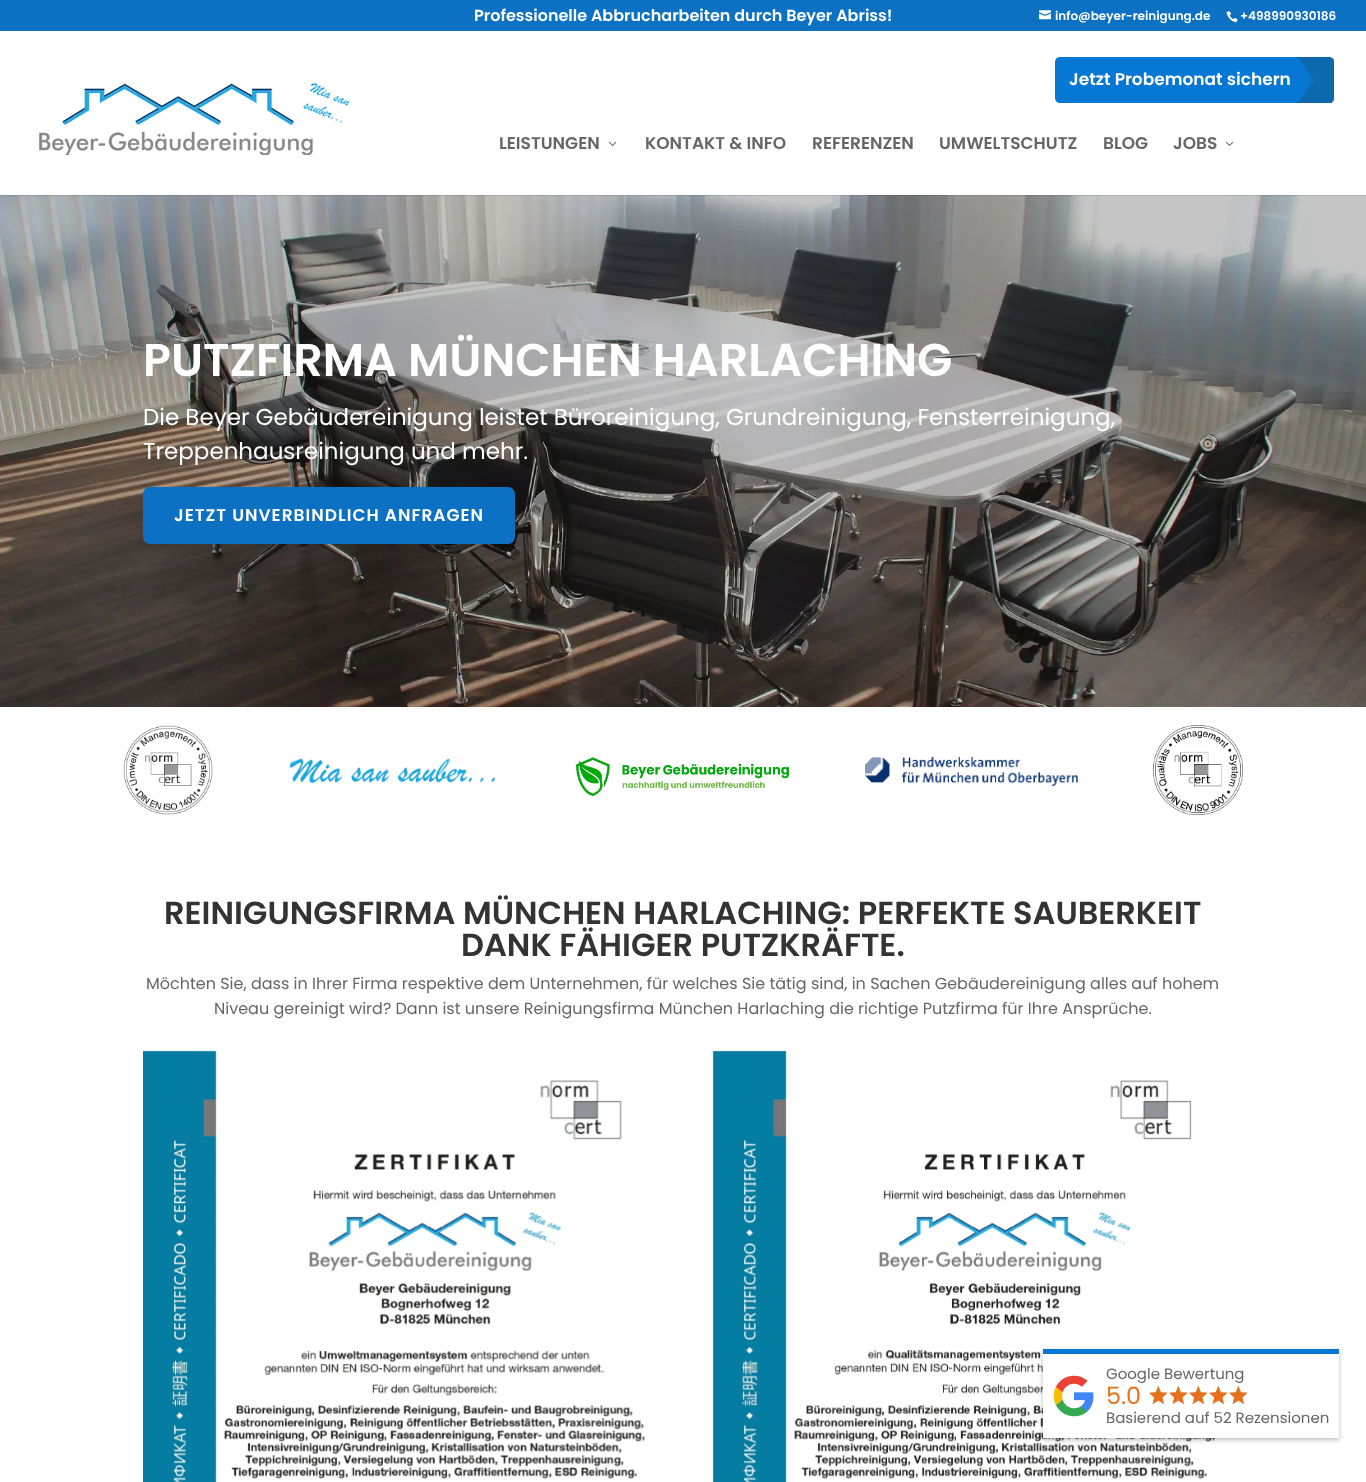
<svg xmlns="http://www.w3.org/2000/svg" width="1366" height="1482">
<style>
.a{font:600 16px Poppins;fill:#fff}
.b{font:600 12px Poppins;fill:#fff}
.c{font:600 17px Poppins;fill:#fff}
.d{font:600 17px Poppins;fill:#666}
.e{font:600 46px Poppins;fill:#fff}
.f{font:23px Poppins;fill:#fff}
.g{font:600 17px Poppins;letter-spacing:1px;fill:#fff}
.h{font:600 32px Poppins;fill:#333}
.i{font:16px Poppins;fill:#666}
.j{font:15px Poppins;fill:#666}
.k{font:24px Poppins;fill:#e7711b}
</style>
<rect width="100%" height="100%" fill="#fff"/>
<path fill="#0c71c3" d="M0 0h1366v31H0z"/>
<image href="1.png" x="1039" y="10" width="12" height="10"/>
<image href="2.png" x="1226" y="11" width="12" height="12"/>
<image href="5.png" x="0" y="195" width="1366" height="512"/>
<path fill="#0000001a" d="M0 195h1366v1H0z"/>
<rect fill="#0678d4" x="1055" y="57" width="279" height="46" rx="5"/>
<path fill="#0678d4" d="M1058 102h274v1H1058z"/>
<path fill="#105f9199" d="M1298 57l16 23h2v-2.5l16.5-19c-.5-1-2-1.5-3.5-1.5z"/>
<path fill="#105f9199" d="M1334 98v-36c0-1 0-3-1-4l-17 20v4l17 20c1-1 1-3 1-4z"/>
<path fill="#0c69ac" d="M1314 80l-16 23h31c1.5 0 3-.5 3.5-1.5l-16.5-19v-2.5z"/>
<image href="3.png" x="39" y="83" width="310" height="72"/>
<image href="4.png" x="608" y="141" width="9" height="5"/>
<image href="4.png" x="1225" y="141" width="9" height="5"/>
<rect fill="#00000029" filter="blur(15px)" x="149" y="505" width="360" height="45" rx="1"/>
<rect fill="#0c71c3" x="143" y="487" width="372" height="57" rx="7"/>
<image href="6.png" x="123" y="725" width="90" height="90"/>
<image href="7.png" x="289" y="758" width="206" height="26"/>
<image href="8.png" x="576" y="757" width="213" height="39"/>
<image href="9.png" x="865" y="757" width="213" height="29"/>
<image href="10.png" x="1153" y="725" width="90" height="90"/>
<image href="11.png" x="143" y="1050" width="503" height="432"/>
<image href="12.png" x="712" y="1050" width="503" height="432"/>
<path fill="#00000042" filter="blur(2.5px)" d="M1043 1351h296v89H1043z"/>
<path fill="#fff" d="M1043 1354h296v84H1043z"/>
<path fill="#0678d4" d="M1043 1349h296v5H1043z"/>
<image href="13.png" x="1053" y="1375" width="41" height="42"/>
<image href="14.png" x="1149" y="1386" width="99" height="18"/>
<image href="15.png" x="1149" y="1385" width="99" height="20"/>
<text class="a" x="474" y="21">Professionelle Abbrucharbeiten durch Beyer Abriss!</text>
<text class="b" x="1055" y="20">info@beyer-reinigung.de</text>
<text class="b" x="1240" y="20">+498990930186</text>
<text class="c" x="1069" y="85">Jetzt Probemonat sichern</text>
<text class="d" x="499" y="149">LEISTUNGEN</text>
<text class="d" x="645" y="149">KONTAKT &amp; INFO</text>
<text class="d" x="812" y="149">REFERENZEN</text>
<text class="d" x="939" y="149">UMWELTSCHUTZ</text>
<text class="d" x="1103" y="149">BLOG</text>
<text class="d" x="1173" y="149">JOBS</text>
<text class="e" x="143" y="376">PUTZFIRMA MÜNCHEN HARLACHING</text>
<text class="f" x="143" y="425">Die Beyer Gebäudereinigung leistet Büroreinigung, Grundreinigung, Fensterreinigung,</text>
<text class="f" x="143" y="459">Treppenhausreinigung und mehr.</text>
<text class="g" x="174" y="521">JETZT UNVERBINDLICH ANFRAGEN</text>
<text class="h" x="164" y="924">REINIGUNGSFIRMA MÜNCHEN HARLACHING: PERFEKTE SAUBERKEIT</text>
<text class="h" x="461" y="956">DANK FÄHIGER PUTZKRÄFTE.</text>
<text class="i" x="146" y="989">Möchten Sie, dass in Ihrer Firma respektive dem Unternehmen, für welches Sie tätig sind, in Sachen Gebäudereinigung alles auf hohem</text>
<text class="i" x="214" y="1014">Niveau gereinigt wird? Dann ist unsere Reinigungsfirma München Harlaching die richtige Putzfirma für Ihre Ansprüche.</text>
<text class="j" x="1106" y="1379">Google Bewertung</text>
<text class="k" x="1106" y="1404">5.0</text>
<text class="j" x="1106" y="1423">Basierend auf 52 Rezensionen</text>
</svg>
